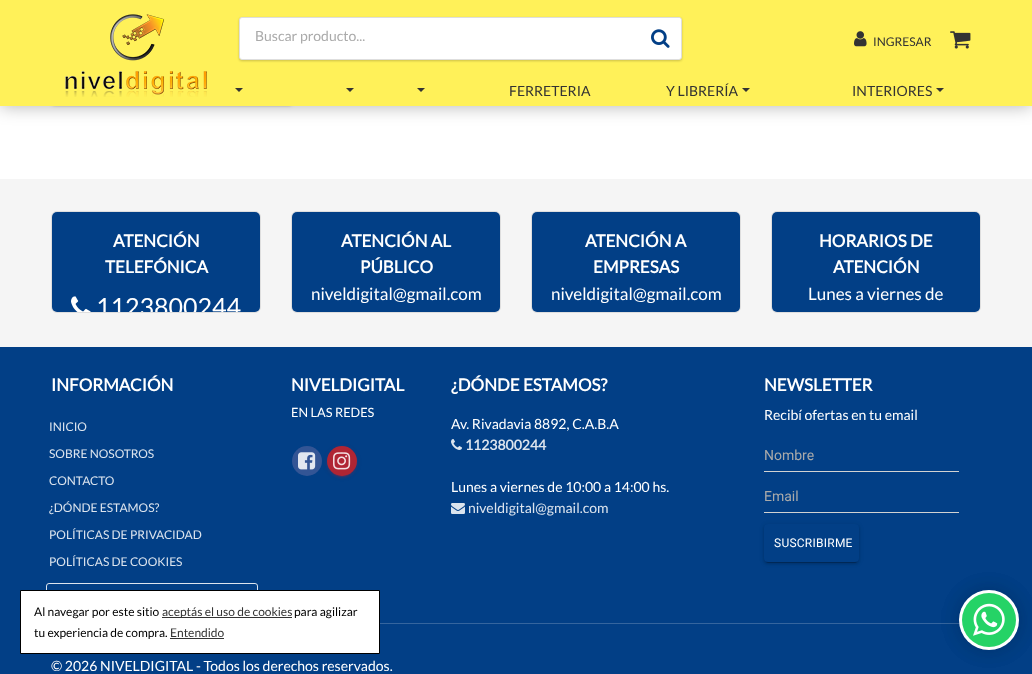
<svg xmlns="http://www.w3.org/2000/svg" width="1032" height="674">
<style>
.a{font:14px Lato;fill:#aaa}
.b{font:12px Lato;fill:#333}
.c{font:14px Lato;fill:#333}
.d{font:bold 17px Lato;fill:#fff}
.e{font:25px Lato;fill:#fff}
.f{font:17px Lato;fill:#fff}
.g{font:12px Lato;fill:#dce4ee}
.h{font:12.75px Lato;fill:#fff}
.i{font:14px Lato;fill:#fff}
.j{font:bold 14px Lato;fill:#dce4ee}
.k{font:14px Lato;fill:#dce4ee}
.l{font:14px Roboto;fill:#aaa}
.m{font:12px Roboto;letter-spacing:0.25px;fill:#fff}
.n{font:12px Lato;fill:#000}
</style>
<defs>
<clipPath id="clip1"><rect x="52" y="212" width="208" height="100" rx="5"/></clipPath>
</defs>
<rect width="100%" height="100%" fill="#f5f5f5"/>
<path fill="#fff" d="M0 106h1032v73H0z"/>
<rect fill="#0000001f" filter="blur(2.5px)" x="52" y="68" width="240" height="37" rx="3"/>
<rect fill="#00000024" filter="blur(1px)" x="52" y="69" width="240" height="37" rx="3"/>
<path fill="#0000004d" filter="blur(9px)" d="M0 60h1032v46H0z"/>
<path fill="#fff159" d="M0 0h1032v106H0z"/>
<image href="1.png" x="65" y="14" width="142" height="83"/>
<rect fill="#00000033" filter="blur(1px)" x="239" y="18" width="443" height="43" rx="3"/>
<rect fill="#fff" stroke="#dedede" x="239.5" y="17.5" width="442" height="42" rx="2.5"/>
<path fill="#fff" d="M255 18h424c1 0 2 1 2 2v34h-426z"/>
<image href="2.png" x="651" y="29" width="19" height="19"/>
<image href="3.png" x="854" y="31" width="13" height="16"/>
<image href="4.png" x="950" y="31" width="21" height="18"/>
<path fill="#333" d="M235 88h8l-4 4z"/>
<path fill="#333" d="M346 88h8l-4 4z"/>
<path fill="#333" d="M417 88h8l-4 4z"/>
<path fill="#333" d="M742 88h8l-4 4z"/>
<path fill="#333" d="M936 88h8l-4 4z"/>
<rect fill="none" stroke="#dedede" x="51.5" y="211.5" width="209" height="101" rx="5.5"/>
<rect fill="#023f86" x="52" y="212" width="208" height="100" rx="5"/>
<image href="5.png" x="71" y="296" width="20" height="16"/>
<rect fill="none" stroke="#dedede" x="291.5" y="211.5" width="209" height="101" rx="5.5"/>
<rect fill="#023f86" x="292" y="212" width="208" height="100" rx="5"/>
<rect fill="none" stroke="#dedede" x="531.5" y="211.5" width="209" height="101" rx="5.5"/>
<rect fill="#023f86" x="532" y="212" width="208" height="100" rx="5"/>
<rect fill="none" stroke="#dedede" x="771.5" y="211.5" width="209" height="101" rx="5.5"/>
<rect fill="#023f86" x="772" y="212" width="208" height="100" rx="5"/>
<path fill="#023f86" d="M0 347h1032v327H0z"/>
<rect fill="none" stroke="#dce4ee" x="46.5" y="583.5" width="211" height="23" rx="2.5"/>
<circle fill="#335595" cx="307" cy="461" r="15"/>
<image href="6.png" x="298" y="452" width="18" height="18"/>
<rect fill="#cc21271a" filter="blur(2.5px)" x="327" y="447" width="30" height="30" rx="15"/>
<rect fill="#b0253433" filter="blur(0.5px)" x="329" y="451" width="26" height="26" rx="13"/>
<rect fill="#b0253424" filter="blur(1px)" x="327" y="448" width="30" height="30" rx="15"/>
<circle fill="#b02534" cx="342" cy="461" r="15"/>
<image href="7.png" x="333" y="452" width="18" height="18"/>
<image href="8.png" x="451" y="439" width="11" height="11"/>
<image href="9.png" x="451" y="503" width="14" height="11"/>
<path fill="#d2d2d2" d="M764 471h195v1H764z"/>
<path fill="#d2d2d2" d="M764 512h195v1H764z"/>
<rect fill="#0000001f" filter="blur(2.5px)" x="764" y="525" width="95" height="38" rx="4"/>
<rect fill="#00000033" filter="blur(0.5px)" x="766" y="529" width="91" height="34" rx="2"/>
<rect fill="#00000024" filter="blur(1px)" x="764" y="526" width="95" height="38" rx="4"/>
<rect fill="#023f86" x="764" y="524" width="95" height="38" rx="4"/>
<path fill="#35659e" d="M380 623h580v1H380z"/>
<rect fill="#0000001a" filter="blur(10px)" x="959" y="590" width="60" height="60" rx="30"/>
<rect fill="#0000001a" filter="blur(10px)" x="959" y="590" width="60" height="60" rx="30"/>
<circle fill="#fff" cx="989" cy="620" r="30"/>
<circle fill="#25d366" cx="989" cy="620" r="27"/>
<image href="10.png" x="973" y="603" width="32" height="33"/>
<path fill="#fff" stroke="#000" d="M20.5 590.5h359v63H20.5z"/>
<path fill="#333" d="M162 617h130v1H162z"/>
<path fill="#333" d="M170 638h54v1H170z"/>
<text class="a" x="255" y="41">Buscar producto...</text>
<text class="b" x="873" y="46">INGRESAR</text>
<text class="c" x="509" y="96">FERRETERIA</text>
<text class="c" x="666" y="96">Y LIBRERÍA</text>
<text class="c" x="852" y="96">INTERIORES</text>
<text class="d" x="113" y="247">ATENCIÓN</text>
<text class="d" x="105" y="273">TELEFÓNICA</text>
<g clip-path="url(#clip1)">
<text class="e" x="96" y="316">1123800244</text>
</g>
<text class="d" x="341" y="247">ATENCIÓN AL</text>
<text class="d" x="360" y="273">PÚBLICO</text>
<text class="f" x="311" y="300">niveldigital@gmail.com</text>
<text class="d" x="585" y="247">ATENCIÓN A</text>
<text class="d" x="593" y="273">EMPRESAS</text>
<text class="f" x="551" y="300">niveldigital@gmail.com</text>
<text class="d" x="819" y="247">HORARIOS DE</text>
<text class="d" x="833" y="273">ATENCIÓN</text>
<text class="f" x="808" y="300">Lunes a viernes de</text>
<text class="d" x="51" y="391">INFORMACIÓN</text>
<text class="g" x="49" y="431">INICIO</text>
<text class="g" x="49" y="458">SOBRE NOSOTROS</text>
<text class="g" x="49" y="485">CONTACTO</text>
<text class="g" x="49" y="512">¿DÓNDE ESTAMOS?</text>
<text class="g" x="49" y="539">POLÍTICAS DE PRIVACIDAD</text>
<text class="g" x="49" y="566">POLÍTICAS DE COOKIES</text>
<text class="d" x="291" y="391">NIVELDIGITAL</text>
<text class="h" x="291" y="417">EN LAS REDES</text>
<text class="d" x="451" y="391">¿DÓNDE ESTAMOS?</text>
<text class="i" x="451" y="429">Av. Rivadavia 8892, C.A.B.A</text>
<text class="j" x="465" y="450">1123800244</text>
<text class="i" x="451" y="492">Lunes a viernes de 10:00 a 14:00 hs.</text>
<text class="k" x="468" y="513">niveldigital@gmail.com</text>
<text class="d" x="764" y="391">NEWSLETTER</text>
<text class="i" x="764" y="420">Recibí ofertas en tu email</text>
<text class="l" x="764" y="460">Nombre</text>
<text class="l" x="764" y="501">Email</text>
<text class="m" x="774" y="547">SUSCRIBIRME</text>
<text class="i" x="51" y="671">© 2026 NIVELDIGITAL - Todos los derechos reservados.</text>
<text class="n" x="34" y="616">Al navegar por este sitio</text>
<text class="b" x="162" y="616">aceptás el uso de cookies</text>
<text class="n" x="294" y="616">para agilizar</text>
<text class="n" x="34" y="637">tu experiencia de compra.</text>
<text class="b" x="170" y="637">Entendido</text>
</svg>
